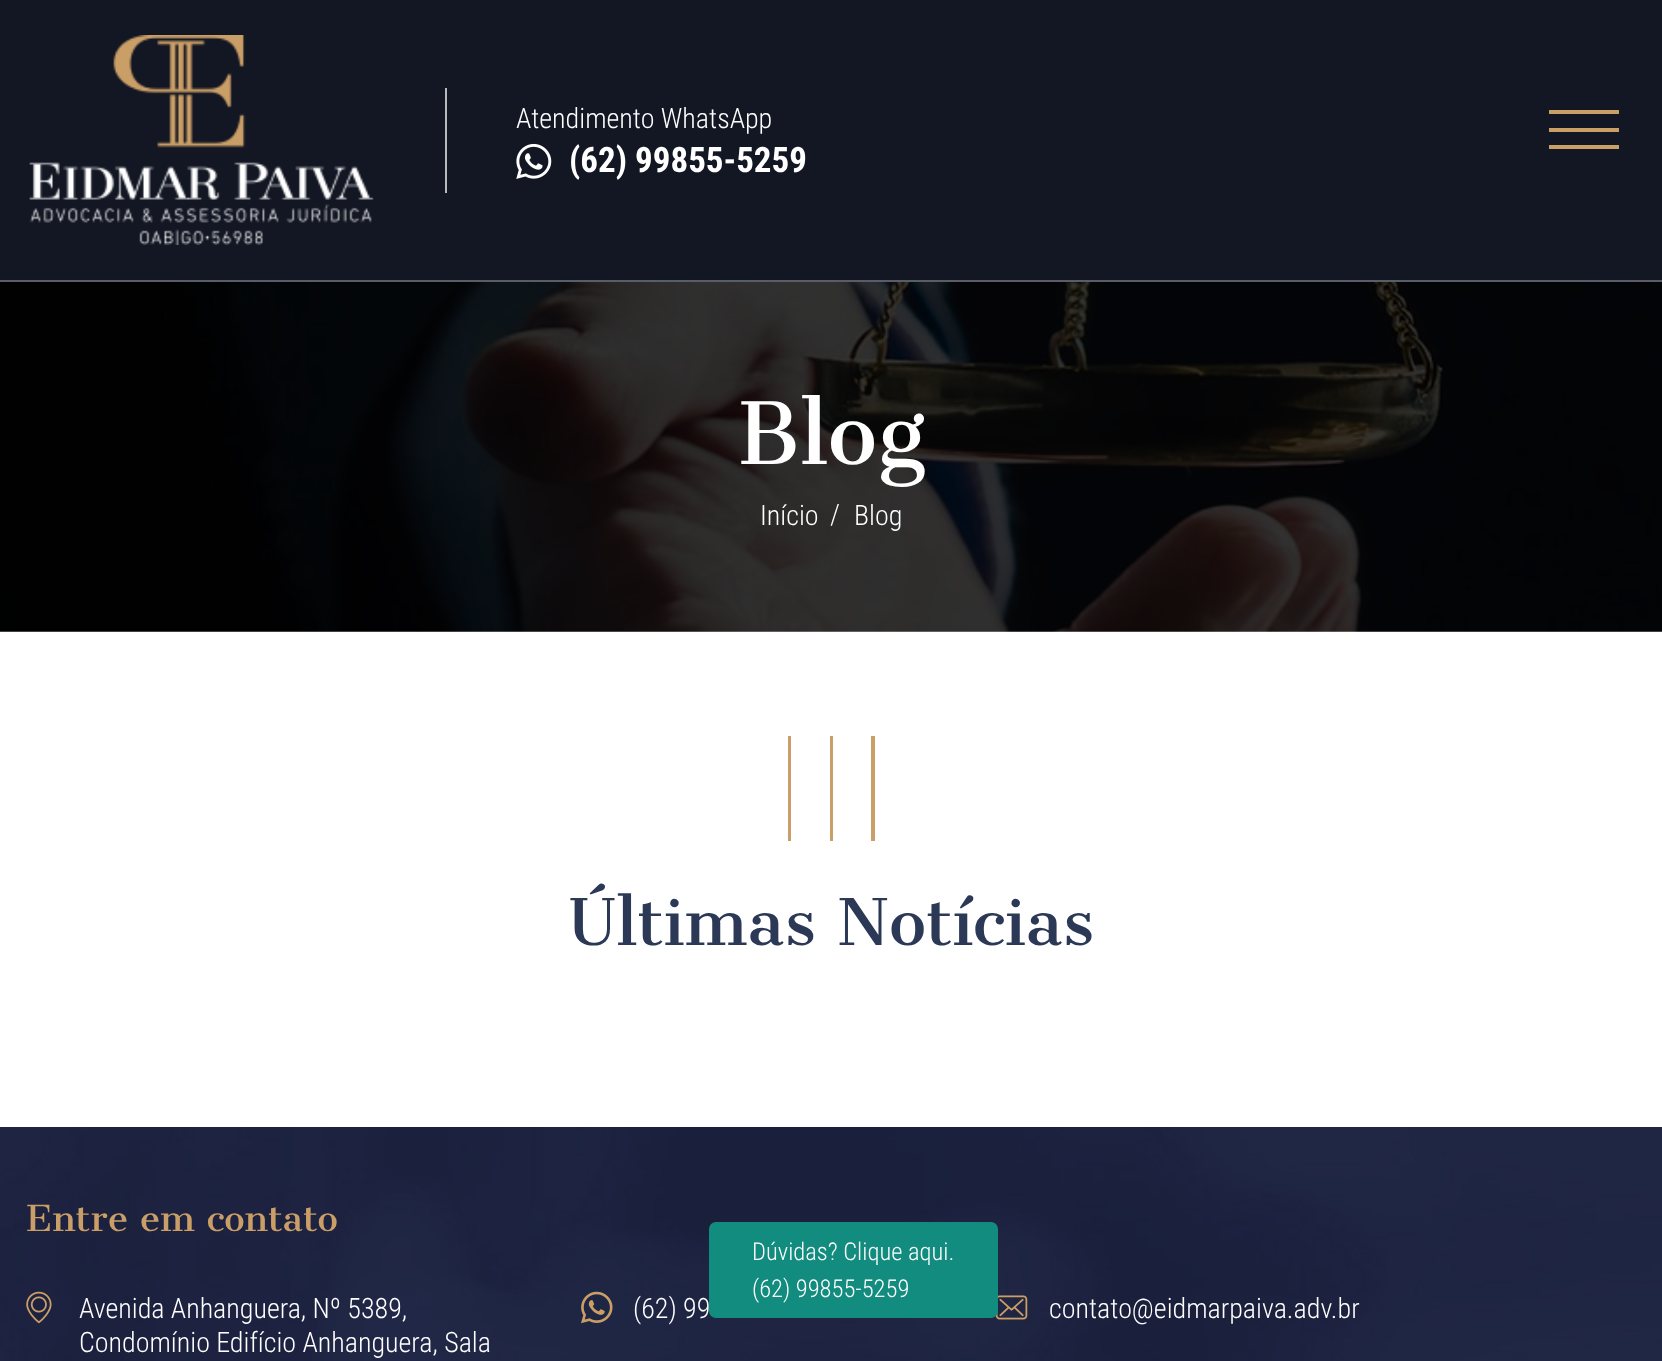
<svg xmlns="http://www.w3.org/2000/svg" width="1662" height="1361">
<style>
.a{font:300 28px Roboto Condensed;fill:#fff}
.b{font:bold 35px Roboto Condensed;fill:#fff}
.c{font:84px Cantata One;fill:#fff}
.d{font:63px Cantata One;fill:#2b3956}
.e{font:35px Cantata One;fill:#ca9e67}
.f{font:300 24.5px Roboto Condensed;fill:#fff}
</style>
<rect width="100%" height="100%" fill="#fff"/>
<path fill="#121723" d="M0 0h1662v280H0z"/>
<path fill="#595d65" d="M0 280h1662v2H0z"/>
<image href="1.png" x="29" y="35" width="345" height="210"/>
<path fill="#b8b9bd" d="M445 88h2v105H445z"/>
<image href="2.png" x="516" y="143" width="36" height="36"/>
<path fill="#ca9e67" d="M1549 128h70v4H1549z"/>
<path fill="#ca9e67" d="M1549 110h70v4H1549z"/>
<path fill="#ca9e67" d="M1549 145h70v4H1549z"/>
<image href="3.png" x="0" y="282" width="1662" height="350"/>
<path fill="#ca9e67" d="M788 736h3v105h-3zm83 0h4v105h-4zm-41 0h3v105h-3z"/>
<image href="4.png" x="0" y="1127" width="1662" height="234"/>
<image href="5.png" x="26" y="1291" width="26" height="33"/>
<image href="6.png" x="581" y="1291" width="32" height="33"/>
<image href="7.png" x="995" y="1295" width="33" height="25"/>
<rect fill="#128c7e" x="709" y="1222" width="289" height="96" rx="7"/>
<text class="a" x="516" y="128">Atendimento WhatsApp</text>
<text class="b" x="569" y="172">(62) 99855-5259</text>
<text class="c" x="737" y="464">Blog</text>
<text class="a" x="760" y="525">Início</text>
<text class="a" x="830" y="524">/</text>
<text class="a" x="854" y="525">Blog</text>
<text class="d" x="569" y="945">Últimas Notícias</text>
<text class="e" x="26" y="1231">Entre em contato</text>
<text class="a" x="79" y="1318">Avenida Anhanguera, Nº 5389,</text>
<text class="a" x="79" y="1352">Condomínio Edifício Anhanguera, Sala</text>
<text class="a" x="633" y="1318">(62) 99</text>
<text class="a" x="1049" y="1318">contato@eidmarpaiva.adv.br</text>
<text class="f" x="752" y="1260">Dúvidas? Clique aqui.</text>
<text class="f" x="752" y="1297">(62) 99855-5259</text>
</svg>
